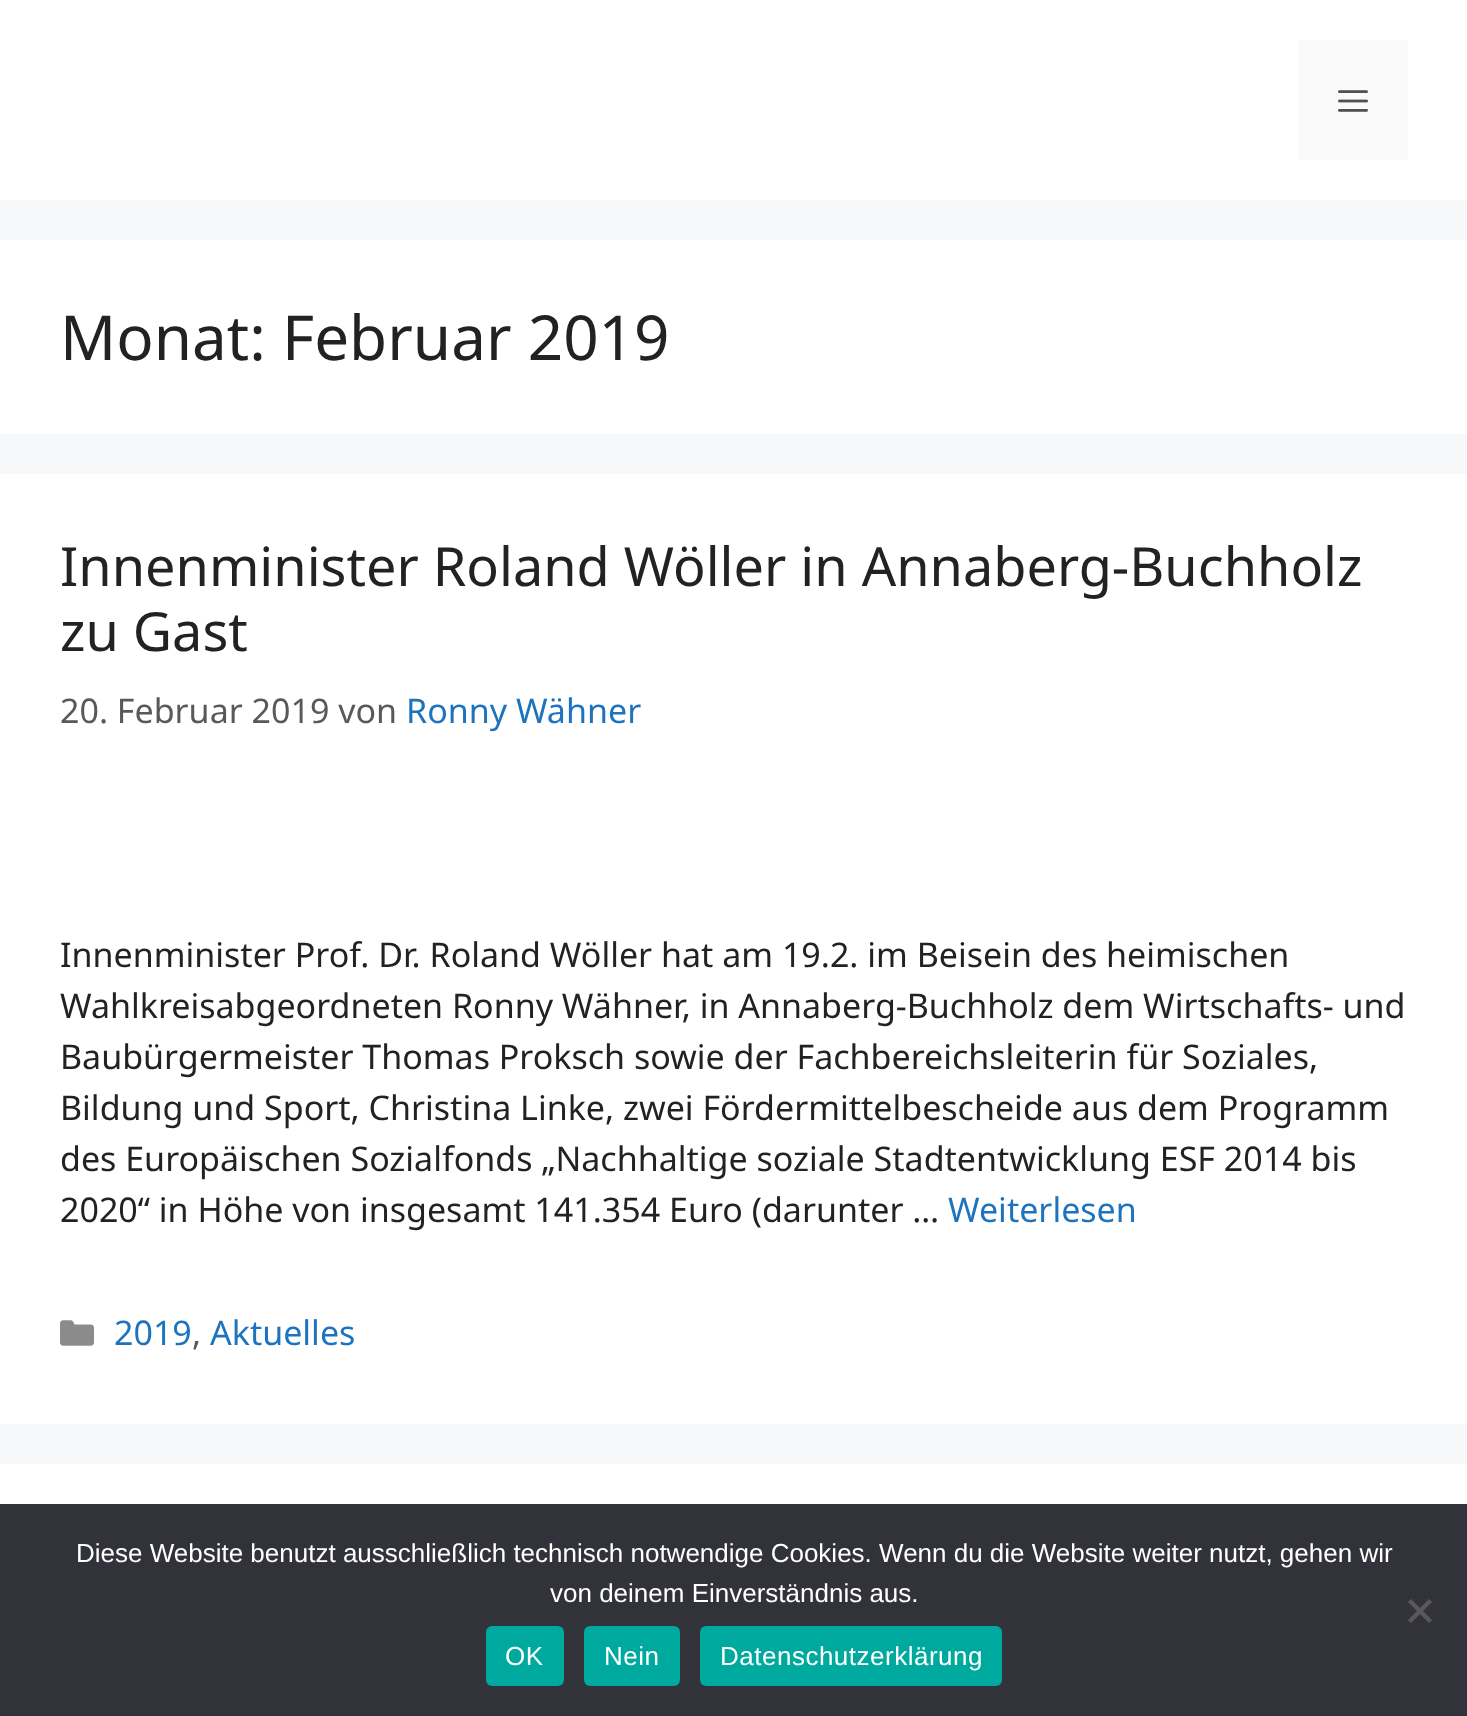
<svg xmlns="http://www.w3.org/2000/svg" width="1467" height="1716">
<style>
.a{font:62px Noto Sans;fill:#222}
.b{font:54px Noto Sans;fill:#222}
.c{font:34px Noto Sans;fill:#595959}
.d{font:34px Noto Sans;fill:#1e73be}
.e{font:34px Noto Sans;fill:#222}
.f{font:26px Liberation Sans;fill:#fff}
.g{font:26px Liberation Sans;letter-spacing:0.5px;fill:#fff}
</style>
<rect width="100%" height="100%" fill="#f7f8f9"/>
<path fill="#fff" d="M0 0h1467v200H0z"/>
<path fill="#fafafa" d="M1298 40h110v120H1298z"/>
<image href="1.png" x="1338" y="90" width="30" height="22"/>
<path fill="#fff" d="M0 240h1467v194H0z"/>
<path fill="#fff" d="M0 474h1467v950H0z"/>
<image href="2.png" x="60" y="1320" width="34" height="26"/>
<path fill="#fff" d="M0 1464h1467v40H0z"/>
<path fill="#32323a" d="M0 1504h1467v212H0z"/>
<path fill="#59595d" d="M1429 1599l3 3l-21 21l-3-3z"/>
<path fill="#59595d" d="M1408 1602l3-3l21 21l-3 3z"/>
<rect fill="#00a99d" x="486" y="1626" width="78" height="60" rx="6"/>
<rect fill="#00a99d" x="584" y="1626" width="96" height="60" rx="6"/>
<rect fill="#00a99d" x="700" y="1626" width="302" height="60" rx="6"/>
<text class="a" x="60" y="360">Monat: Februar 2019</text>
<text class="b" x="60" y="586">Innenminister Roland Wöller in Annaberg-Buchholz</text>
<text class="b" x="60" y="651">zu Gast</text>
<text class="c" x="60" y="723">20. Februar 2019 von</text>
<text class="d" x="406" y="723">Ronny Wähner</text>
<text class="e" x="60" y="967">Innenminister Prof. Dr. Roland Wöller hat am 19.2. im Beisein des heimischen</text>
<text class="e" x="60" y="1018">Wahlkreisabgeordneten Ronny Wähner, in Annaberg-Buchholz dem Wirtschafts- und</text>
<text class="e" x="60" y="1069">Baubürgermeister Thomas Proksch sowie der Fachbereichsleiterin für Soziales,</text>
<text class="e" x="60" y="1120">Bildung und Sport, Christina Linke, zwei Fördermittelbescheide aus dem Programm</text>
<text class="e" x="60" y="1171">des Europäischen Sozialfonds „Nachhaltige soziale Stadtentwicklung ESF 2014 bis</text>
<text class="e" x="60" y="1222">2020“ in Höhe von insgesamt 141.354 Euro (darunter …</text>
<text class="d" x="948" y="1222">Weiterlesen</text>
<text class="d" x="114" y="1345">2019</text>
<text class="c" x="192" y="1345">,</text>
<text class="d" x="210" y="1345">Aktuelles</text>
<text class="f" x="76" y="1562">Diese Website benutzt ausschließlich technisch notwendige Cookies. Wenn du die Website weiter nutzt, gehen wir</text>
<text class="f" x="550" y="1602">von deinem Einverständnis aus.</text>
<text class="g" x="505" y="1665">OK</text>
<text class="g" x="604" y="1665">Nein</text>
<text class="g" x="720" y="1665">Datenschutzerklärung</text>
</svg>
